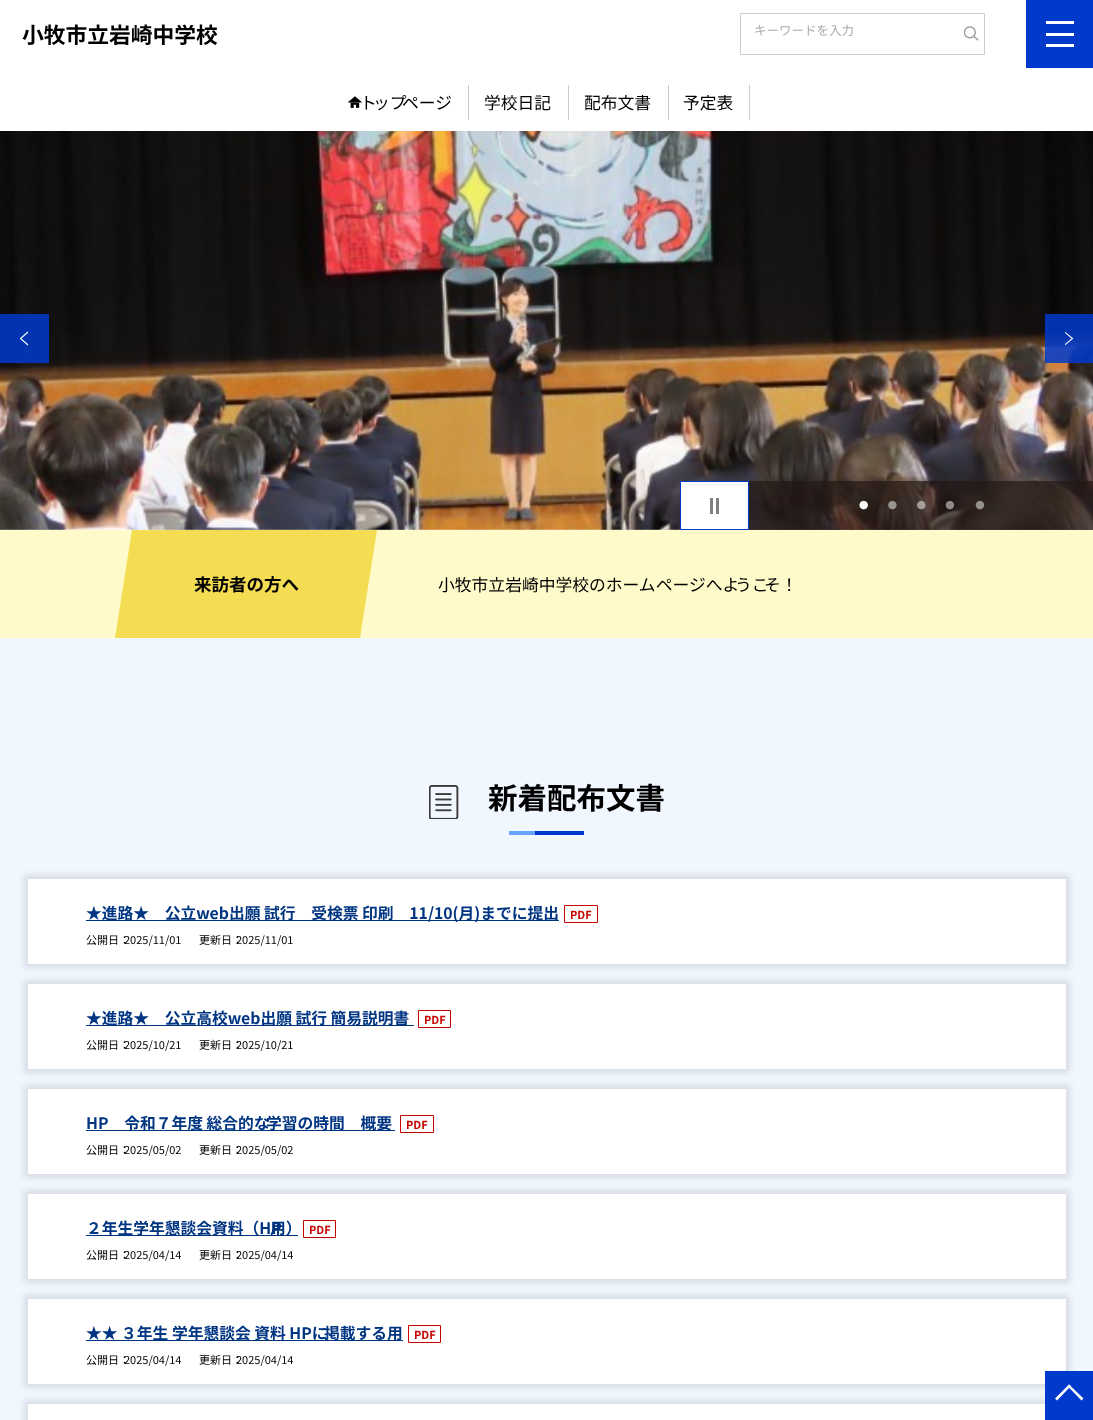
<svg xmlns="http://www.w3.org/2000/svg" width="1093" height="1420">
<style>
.a{font:bold 21.75px Noto Sans JP;fill:#000}
.b{font:12.5px Noto Sans JP;fill:#aaa}
.c{font:16.75px Noto Sans JP;fill:#000}
.d{font:bold 17.5px Noto Sans JP;fill:#000}
.e{font:16.8px Noto Sans JP;fill:#000}
.f{font:bold 29.5px Noto Sans JP;fill:#000}
.g{font:bold 15.75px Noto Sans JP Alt;fill:#003582}
.h{font:bold 11px Noto Sans JP;fill:#c40500}
.i{font:11px Noto Sans JP;fill:#000}
.j{font:bold 15.75px Noto Sans JP;fill:#003582}
</style>
<defs>
<clipPath id="clip1"><path d="M1065 331h9v14H1065z"/></clipPath>
</defs>
<rect width="100%" height="100%" fill="#fff"/>
<image href="1.png" x="964" y="26" width="15" height="15"/>
<path fill="none" stroke="#ccc" d="M740.5 13.5h244v41H740.5z"/>
<path fill="#003acc" d="M1026 0h67v68H1026z"/>
<path fill="#fff" d="M1046 21h28v3H1046z"/>
<path fill="#fff" d="M1046 44h28v3H1046z"/>
<path fill="#fff" d="M1046 33h28v3H1046z"/>
<image href="2.png" x="348" y="96" width="15" height="12"/>
<path fill="#ccc" d="M468 85h1v35H468z"/>
<path fill="#ccc" d="M568 85h1v35H568z"/>
<path fill="#ccc" d="M668 85h1v35H668z"/>
<path fill="#ccc" d="M749 85h1v35H749z"/>
<image href="3.png" x="0" y="131" width="1093" height="399"/>
<path fill="#003accd9" d="M0 314h49v49H0z"/>
<path fill="none" stroke="#fff" stroke-width="1.1" d="M28 345l-7.5-6.5l7.5-6.5"/>
<path fill="#003accd9" d="M1045 314h48v49H1045z"/>
<g clip-path="url(#clip1)">
<path fill="none" stroke="#fff" stroke-width="1.1" d="M1064.5 345l8-6.5l-8-6.5"/>
</g>
<path fill="#231815b3" d="M749 481h344v49H749z"/>
<image href="4.png" x="859" y="500" width="9" height="10"/>
<image href="5.png" x="888" y="500" width="9" height="10"/>
<image href="6.png" x="917" y="500" width="9" height="10"/>
<image href="7.png" x="945" y="500" width="10" height="10"/>
<image href="8.png" x="975" y="500" width="10" height="10"/>
<path fill="#fff" stroke="#003acc" d="M680.5 481.5h68v48H680.5z"/>
<path fill="#808080" d="M710 498h3v16H710z"/>
<path fill="#808080" d="M716 498h3v16H716z"/>
<path fill="#fffaca" d="M0 530h1093v108H0z"/>
<path fill="#f4dd53" d="M132 530h245l-17 108h-245z"/>
<path fill="#f1f7ff" d="M0 638h1093v782H0z"/>
<image href="9.png" x="429" y="785" width="30" height="34"/>
<path fill="#66a4ff" d="M509 831h26v4H509z"/>
<path fill="#003acc" d="M535 831h49v4H535z"/>
<path fill="#0000001a" filter="blur(3px)" d="M24 875h1046v93H24z"/>
<path fill="#fff" d="M28 879h1038v85H28z"/>
<path fill="#003582" d="M86 920h473v1H86z"/>
<path fill="none" stroke="#c40500" d="M564.5 905.5h33v17H564.5z"/>
<path fill="#0000001a" filter="blur(3px)" d="M24 980h1046v93H24z"/>
<path fill="#fff" d="M28 984h1038v85H28z"/>
<path fill="#003582" d="M86 1025h328v1H86z"/>
<path fill="none" stroke="#c40500" d="M418.5 1010.5h32v17H418.5z"/>
<path fill="#0000001a" filter="blur(3px)" d="M24 1085h1046v93H24z"/>
<path fill="#fff" d="M28 1089h1038v85H28z"/>
<path fill="#003582" d="M86 1130h309v1H86z"/>
<path fill="none" stroke="#c40500" d="M400.5 1115.5h33v17H400.5z"/>
<path fill="#0000001a" filter="blur(3px)" d="M24 1190h1046v93H24z"/>
<path fill="#fff" d="M28 1194h1038v85H28z"/>
<path fill="#003582" d="M86 1235h212v1H86z"/>
<path fill="none" stroke="#c40500" d="M303.5 1220.5h32v17H303.5z"/>
<path fill="#0000001a" filter="blur(3px)" d="M24 1295h1046v93H24z"/>
<path fill="#fff" d="M28 1299h1038v85H28z"/>
<path fill="#003582" d="M86 1340h317v1H86z"/>
<path fill="none" stroke="#c40500" d="M408.5 1325.5h32v17H408.5z"/>
<path fill="#0000001a" filter="blur(3px)" d="M24 1400h1046v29H24z"/>
<path fill="#fff" d="M28 1404h1017v16H28z"/>
<path fill="#003acc" d="M1045 1371h48v49H1045z"/>
<path fill="#fff" d="M1055 1398.5l14-14l2 1.5l-14 14.5z"/>
<path fill="#fff" d="M1067.5 1386l1.5-1.5l14.5 14l-2 2z"/>
<text class="a" x="22" y="43">小牧市立岩崎中学校</text>
<text class="b" x="754" y="35">キーワードを入力</text>
<text class="c" x="360" y="109">ト</text>
<text class="c" x="373" y="109">ップ</text>
<text class="c" x="402" y="109">ページ</text>
<text class="c" x="484" y="109">学校日記</text>
<text class="c" x="584" y="109">配布文書</text>
<text class="c" x="683" y="109">予定表</text>
<text class="d" x="194" y="591">来訪者の方へ</text>
<text class="e" x="438" y="591">小牧市立岩崎中学校のホームページへよ</text>
<text class="e" x="735" y="591">うこ</text>
<text class="e" x="764" y="591">そ！</text>
<text class="f" x="488" y="809">新着配布文書</text>
<text class="g" x="86" y="919">★進路★　公立web出願 試行　受検票 印刷　11/10(月)までに提出</text>
<text class="h" x="570" y="919">PDF</text>
<text class="i" x="124" y="944">2025/11/01</text>
<text class="i" x="86" y="944">公開日：</text>
<text class="i" x="236" y="944">2025/11/01</text>
<text class="i" x="199" y="944">更新日：</text>
<text class="j" x="86" y="1024">★進路★　公立高校web出願 試行 簡易説明書</text>
<text class="h" x="424" y="1024">PDF</text>
<text class="i" x="124" y="1049">2025/10/21</text>
<text class="i" x="86" y="1049">公開日：</text>
<text class="i" x="236" y="1049">2025/10/21</text>
<text class="i" x="199" y="1049">更新日：</text>
<text class="j" x="86" y="1129">HP　令和７年度 総合的な</text>
<text class="j" x="266" y="1129">学習の時間　概要</text>
<text class="h" x="406" y="1129">PDF</text>
<text class="i" x="124" y="1154">2025/05/02</text>
<text class="i" x="86" y="1154">公開日：</text>
<text class="i" x="236" y="1154">2025/05/02</text>
<text class="i" x="199" y="1154">更新日：</text>
<text class="j" x="86" y="1234">２年生学年懇談会資料（HP</text>
<text class="j" x="270" y="1234">用）</text>
<text class="h" x="309" y="1234">PDF</text>
<text class="i" x="124" y="1259">2025/04/14</text>
<text class="i" x="86" y="1259">公開日：</text>
<text class="i" x="236" y="1259">2025/04/14</text>
<text class="i" x="199" y="1259">更新日：</text>
<text class="j" x="86" y="1339">★★ ３年生 学年懇談会 資料 HPに</text>
<text class="j" x="324" y="1339">掲載する用</text>
<text class="h" x="414" y="1339">PDF</text>
<text class="i" x="124" y="1364">2025/04/14</text>
<text class="i" x="86" y="1364">公開日：</text>
<text class="i" x="236" y="1364">2025/04/14</text>
<text class="i" x="199" y="1364">更新日：</text>
</svg>
